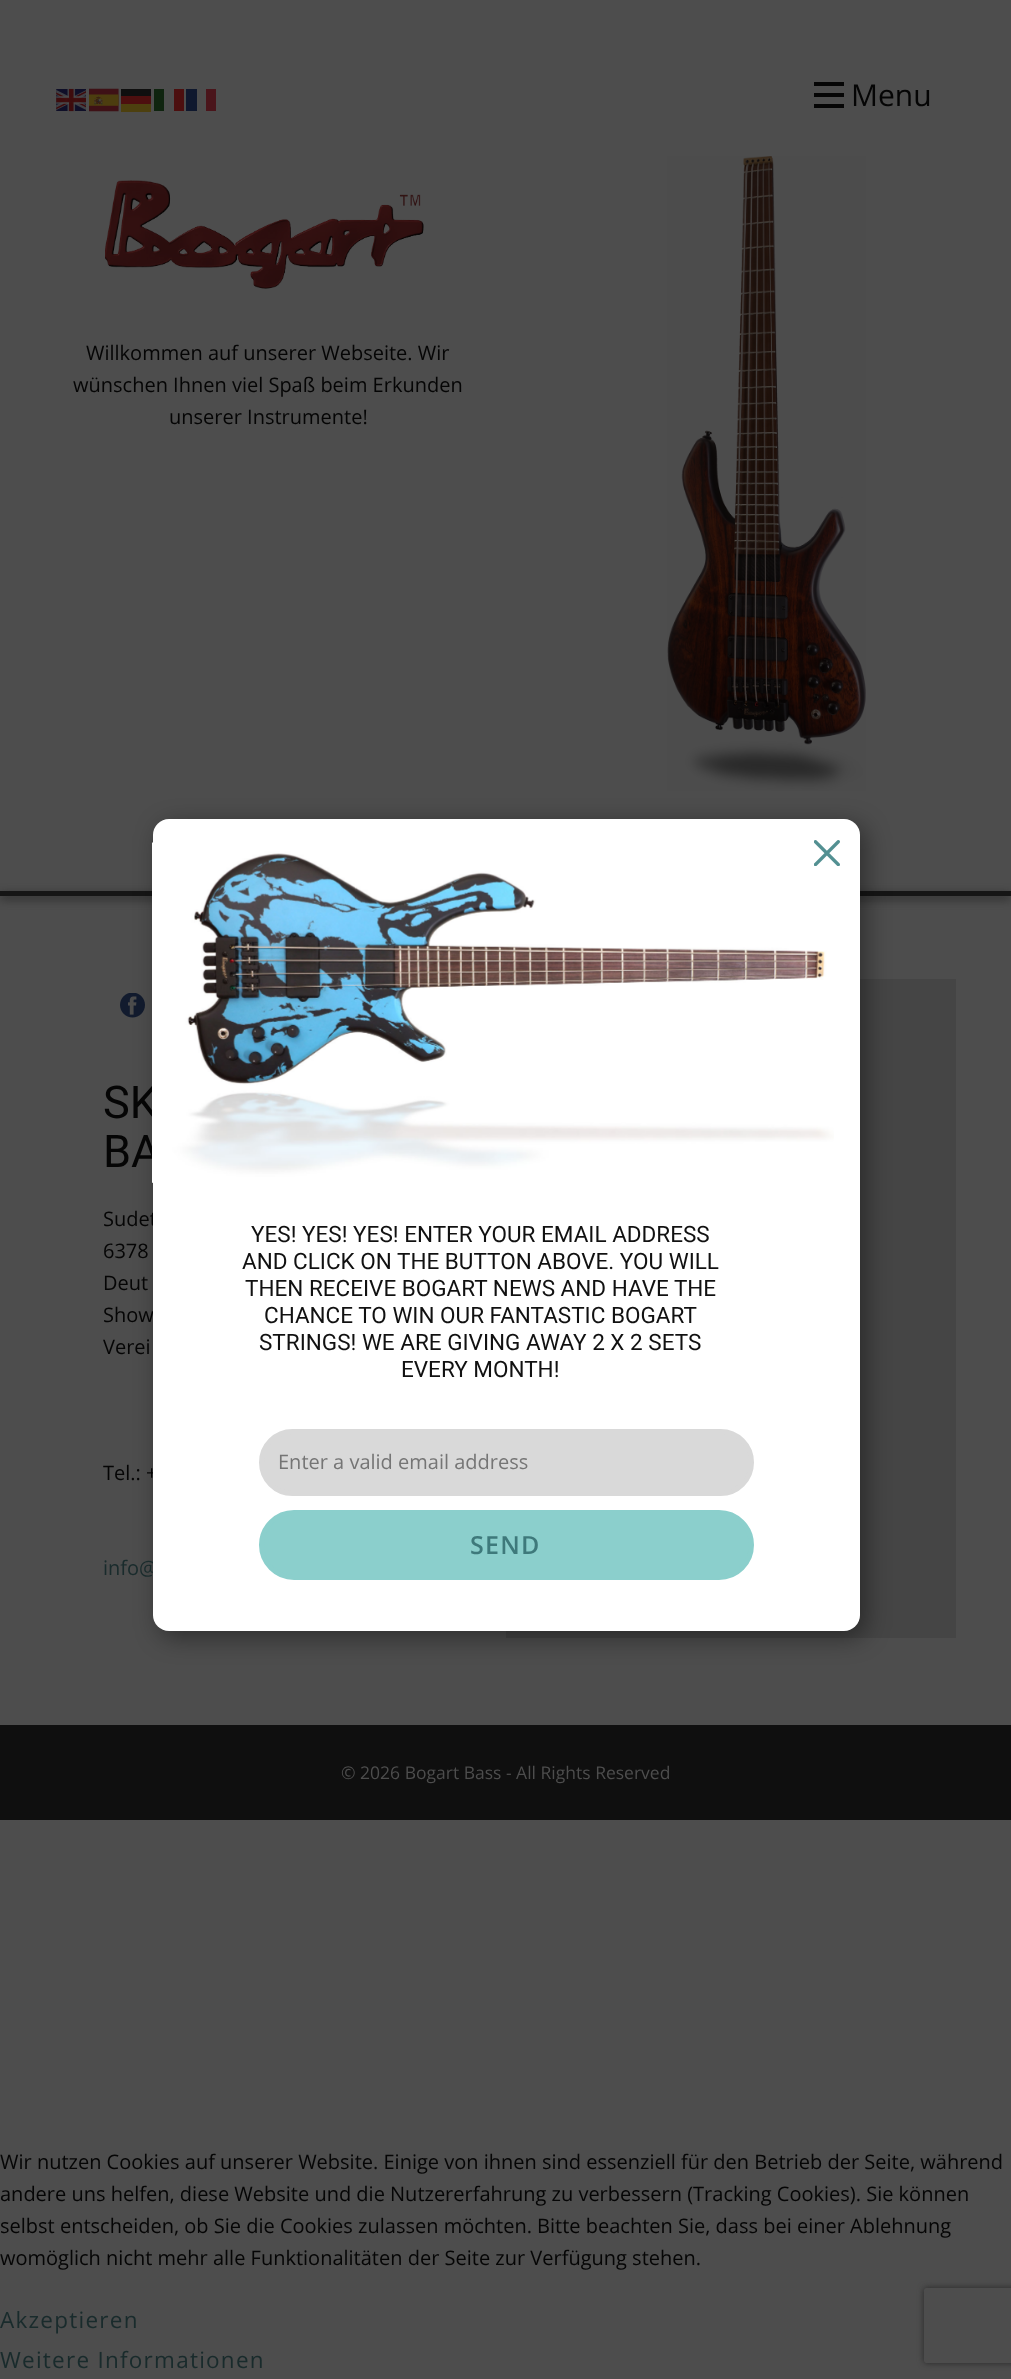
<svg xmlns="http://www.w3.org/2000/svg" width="1011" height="2379">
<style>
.a{font:30px Open Sans;fill:#050505}
.b{font:20px Open Sans;fill:#050505}
.c{font:45px Roboto;fill:#050505}
.d{font:20px Open Sans;fill:#192b2c}
.e{font:22.5px Roboto;fill:#111}
.f{font:20px Open Sans;fill:#757575}
.g{font:600 25px Open Sans;letter-spacing:1.25px;fill:#3e797b}
.h{font:17.5px Open Sans;fill:#4d4d4d}
.i{font:22.5px Open Sans;letter-spacing:1.25px;fill:#192b2c}
</style>
<defs>
<clipPath id="clip1"><path d="M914 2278h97v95h-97zm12.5 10h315c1.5 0 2.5 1 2.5 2.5v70c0 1.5-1 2.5-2.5 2.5h-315c-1.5 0-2.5-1-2.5-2.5v-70c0-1.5 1-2.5 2.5-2.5z" clip-rule="evenodd"/></clipPath>
</defs>
<rect width="100%" height="100%" fill="#4d4d4d"/>
<image href="1.png" x="56" y="88" width="30" height="24"/>
<image href="2.png" x="89" y="88" width="30" height="24"/>
<path fill="#0f0f0f" d="M121 89h30v7H121z"/>
<path fill="#0f240f" d="M154 89h10v22H154z"/>
<path fill="#4c0f0f" d="M174 89h10v22H174z"/>
<path fill="#0f182e" d="M186 89h11v22H186z"/>
<path fill="#4a151b" d="M206 89h10v22H206z"/>
<path fill="#4d0f0f" d="M121 96h30v8H121z"/>
<path fill="#4d400f" d="M121 104h30v8H121z"/>
<path fill="#050505" d="M814 82h30v4H814z"/>
<path fill="#050505" d="M814 93h30v4H814z"/>
<path fill="#050505" d="M814 104h30v4H814z"/>
<image href="3.png" x="105" y="180" width="319" height="109"/>
<image href="4.png" x="667" y="156" width="199" height="635"/>
<path fill="#262626" filter="blur(5px)" d="M0 894h1011v5H0z"/>
<path fill="#151515" d="M0 891h1011v5H0z"/>
<image href="5.png" x="120" y="993" width="25" height="25"/>
<path fill="#454545" d="M506 979h450v659H506z"/>
<rect fill="#00000066" filter="blur(12.5px)" x="159" y="825" width="707" height="813" rx="16"/>
<path fill="#0f0f0f" d="M0 1725h1011v95H0z"/>
<g clip-path="url(#clip1)">
<rect fill="#262626" filter="blur(3px)" x="924" y="2288" width="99" height="75" rx="2.5"/>
</g>
<text class="a" x="851" y="106">Menu</text>
<text class="b" x="86" y="360">Willkommen auf unserer Webseite. Wir</text>
<text class="b" x="73" y="392">wünschen Ihnen viel Spaß beim Erkunden</text>
<text class="b" x="169" y="424">unserer Instrumente!</text>
<text class="c" x="103" y="1118">SK</text>
<text class="c" x="103" y="1167">BA</text>
<text class="b" x="103" y="1226">Sudet</text>
<text class="b" x="103" y="1258">6378</text>
<text class="b" x="103" y="1290">Deut</text>
<text class="b" x="103" y="1322">Show</text>
<text class="b" x="103" y="1354">Verei</text>
<text class="b" x="103" y="1480">Tel.: +</text>
<text class="d" x="103" y="1575">info@</text>
<rect fill="#fff" x="153" y="819" width="707" height="812" rx="16"/>
<image href="7.png" x="152" y="842" width="682" height="341"/>
<image href="6.png" x="814" y="840" width="26" height="26"/>
<text class="e" x="251" y="1242">YES! YES! YES! ENTER YOUR EMAIL ADDRESS</text>
<text class="e" x="242" y="1269">AND CLICK ON THE BUTTON ABOVE. YOU WILL</text>
<text class="e" x="245" y="1296">THEN RECEIVE BOGART NEWS AND HAVE THE</text>
<text class="e" x="264" y="1323">CHANCE TO WIN OUR FANTASTIC BOGART</text>
<text class="e" x="259" y="1350">STRINGS! WE ARE GIVING AWAY 2 X 2 SETS</text>
<text class="e" x="401" y="1377">EVERY MONTH!</text>
<rect fill="#d9d9d9" stroke="#d9d9d9" stroke-width="5" x="261.5" y="1431.5" width="490" height="62" rx="31"/>
<text class="f" x="278" y="1469">Enter a valid email address</text>
<rect fill="#8bcfcc" stroke="#8bcfcc" stroke-width="5" x="261.5" y="1512.5" width="490" height="65" rx="32.5"/>
<text class="g" x="470" y="1554">SEND</text>
<text class="h" x="341" y="1779">© 2026 Bogart Bass - All Rights Reserved</text>
<text class="b" x="0" y="2169">Wir nutzen Cookies auf unserer Website. Einige von ihnen sind essenziell für den Betrieb der Seite, während</text>
<text class="b" x="0" y="2201">andere uns helfen, diese Website und die Nutzererfahrung zu verbessern (Tracking Cookies). Sie können</text>
<text class="b" x="0" y="2233">selbst entscheiden, ob Sie die Cookies zulassen möchten. Bitte beachten Sie, dass bei einer Ablehnung</text>
<text class="b" x="0" y="2265">womöglich nicht mehr alle Funktionalitäten der Seite zur Verfügung stehen.</text>
<text class="i" x="0" y="2328">Akzeptieren</text>
<text class="i" x="0" y="2368">Weitere Informationen</text>
</svg>
